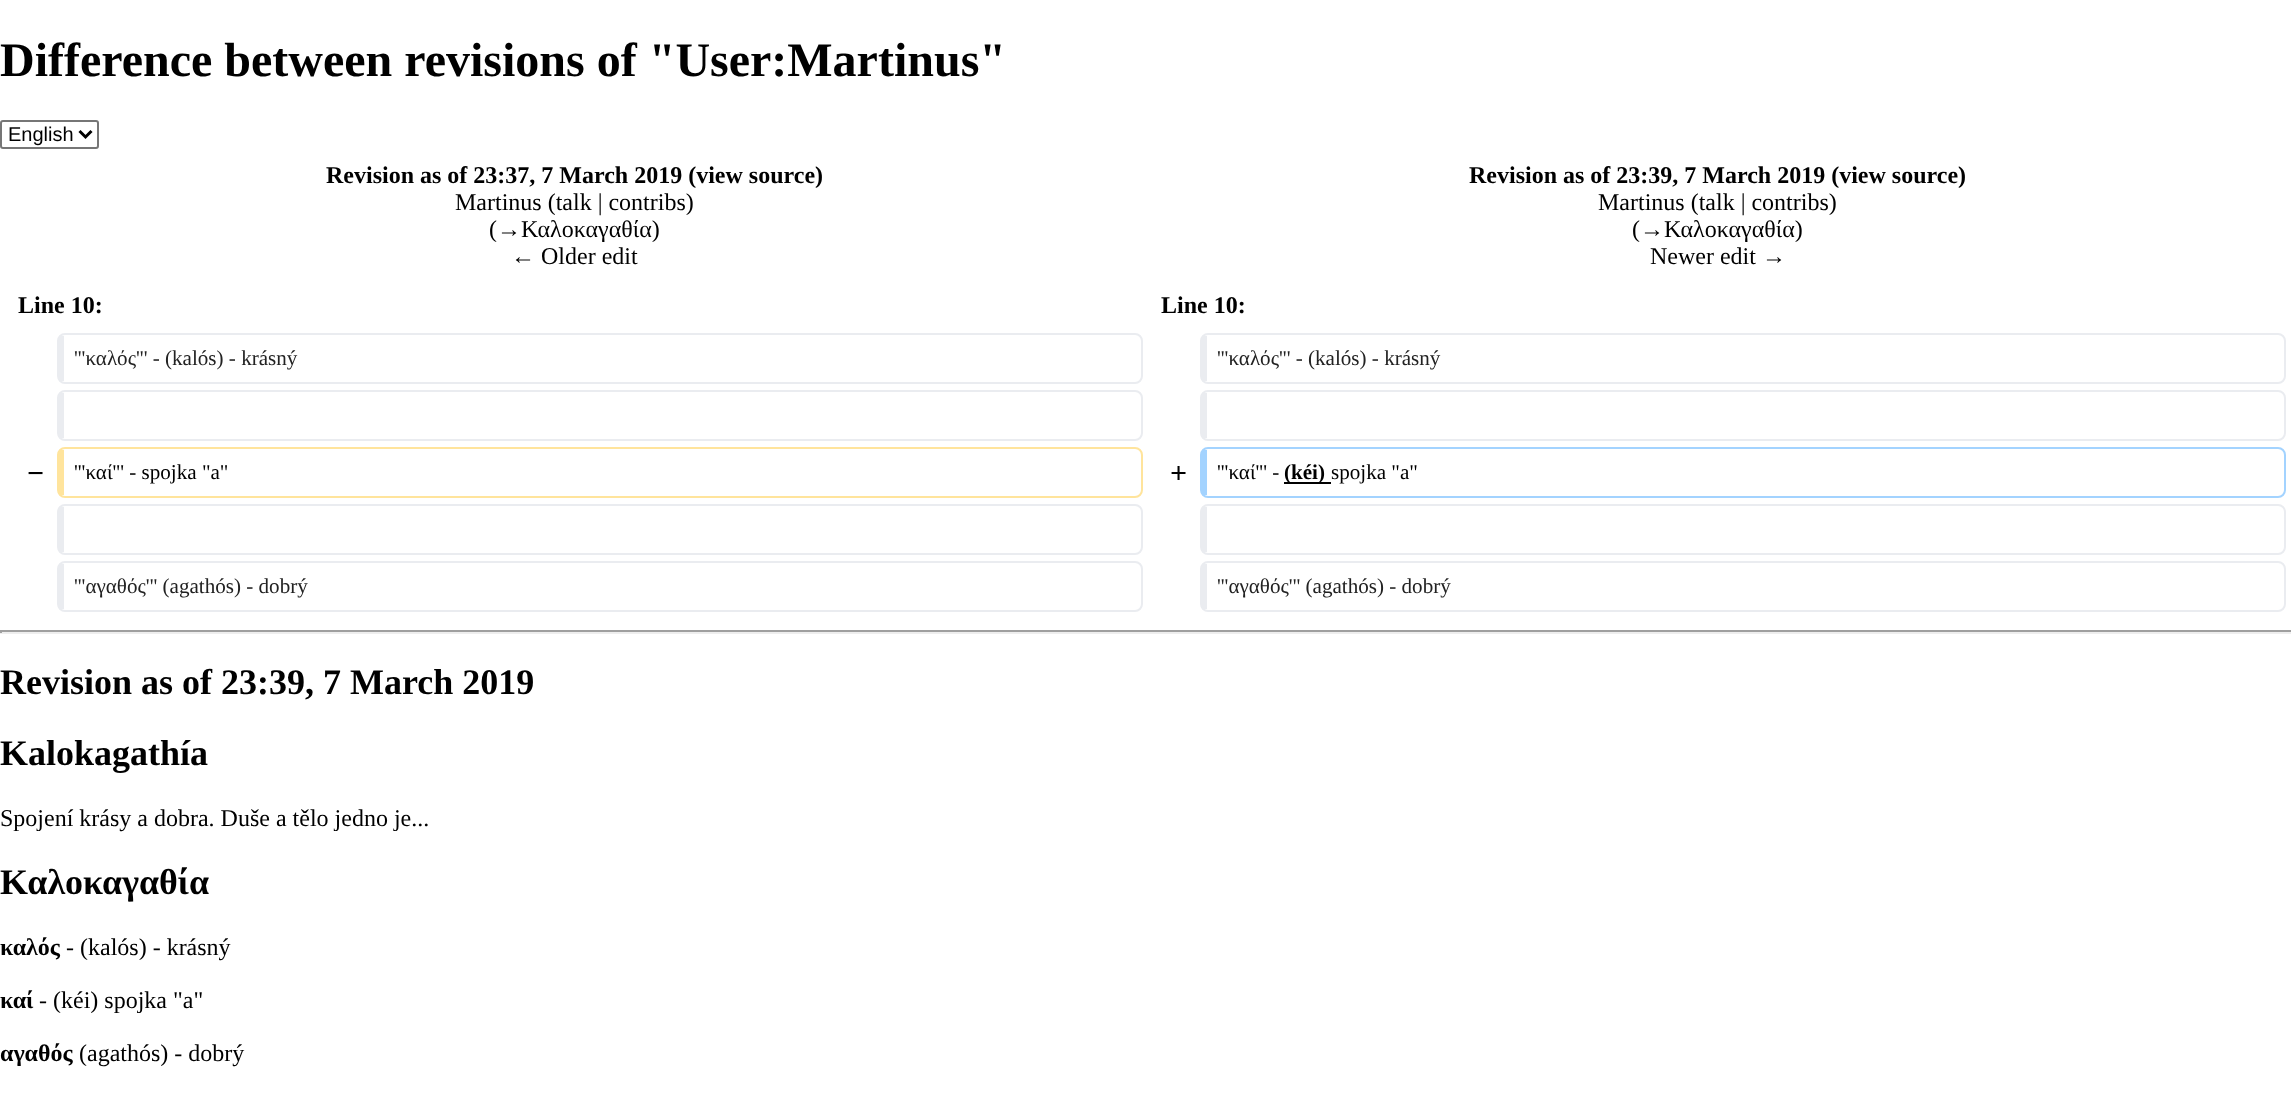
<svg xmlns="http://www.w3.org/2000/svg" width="2291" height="1111">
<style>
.a{font:bold 48px Liberation Serif;fill:#000}
.b{font:20px Liberation Sans;fill:#000}
.c{font:bold 24px Liberation Serif;fill:#000}
.d{font:24px Liberation Serif;fill:#000}
.e{font:21.1px Liberation Serif;fill:#222}
.f{font:bold 30px Liberation Serif;fill:#000}
.g{font:21.1px Liberation Serif;fill:#000}
.h{font:bold 21.1px Liberation Serif;fill:#000}
.i{font:bold 36px Liberation Serif;fill:#000}
</style>
<rect width="100%" height="100%" fill="#fff"/>
<rect fill="none" stroke="#767676" stroke-width="2" x="1" y="121" width="97" height="27" rx="2"/>
<path fill="none" stroke="#000" stroke-width="3" d="M79.5 131l6 6l6-6"/>
<rect fill="none" stroke="#eaecf0" stroke-width="2" x="58" y="334" width="1084" height="49" rx="7"/>
<path fill="#eaecf0" d="M59 336h5v45H59z"/>
<rect fill="none" stroke="#eaecf0" stroke-width="2" x="1201" y="334" width="1084" height="49" rx="7"/>
<path fill="#eaecf0" d="M1202 336h5v45H1202z"/>
<rect fill="none" stroke="#eaecf0" stroke-width="2" x="58" y="391" width="1084" height="49" rx="7"/>
<path fill="#eaecf0" d="M59 393h5v45H59z"/>
<rect fill="none" stroke="#eaecf0" stroke-width="2" x="1201" y="391" width="1084" height="49" rx="7"/>
<path fill="#eaecf0" d="M1202 393h5v45H1202z"/>
<rect fill="none" stroke="#ffe49c" stroke-width="2" x="58" y="448" width="1084" height="49" rx="7"/>
<path fill="#ffe49c" d="M59 450h5v45H59z"/>
<rect fill="none" stroke="#a3d3ff" stroke-width="2" x="1201" y="448" width="1084" height="49" rx="7"/>
<path fill="#a3d3ff" d="M1202 450h5v45H1202z"/>
<path fill="#000" d="M1284 482h47v2H1284z"/>
<rect fill="none" stroke="#eaecf0" stroke-width="2" x="58" y="505" width="1084" height="49" rx="7"/>
<path fill="#eaecf0" d="M59 507h5v45H59z"/>
<rect fill="none" stroke="#eaecf0" stroke-width="2" x="1201" y="505" width="1084" height="49" rx="7"/>
<path fill="#eaecf0" d="M1202 507h5v45H1202z"/>
<rect fill="none" stroke="#eaecf0" stroke-width="2" x="58" y="562" width="1084" height="49" rx="7"/>
<path fill="#eaecf0" d="M59 564h5v45H59z"/>
<rect fill="none" stroke="#eaecf0" stroke-width="2" x="1201" y="562" width="1084" height="49" rx="7"/>
<path fill="#eaecf0" d="M1202 564h5v45H1202z"/>
<path fill="#9f9f9f" d="M0 630h2291v2H0z"/>
<path fill="#eee" d="M0 632h2291v2H0z"/>
<path fill="#9f9f9f" d="M0 630h2v3H0z"/>
<text class="a" x="0" y="76">Difference between revisions of "User:Martinus"</text>
<text class="b" x="8" y="141">English</text>
<text class="c" x="326" y="183">Revision as of 23:37, 7 March 2019 (view source)</text>
<text class="d" x="455" y="210">Martinus (talk | contribs)</text>
<text class="d" x="489" y="237">(→Καλοκαγαθία)</text>
<text class="d" x="511" y="264">← Older edit</text>
<text class="c" x="1469" y="183">Revision as of 23:39, 7 March 2019 (view source)</text>
<text class="d" x="1598" y="210">Martinus (talk | contribs)</text>
<text class="d" x="1632" y="237">(→Καλοκαγαθία)</text>
<text class="d" x="1650" y="264">Newer edit →</text>
<text class="c" x="18" y="313">Line 10:</text>
<text class="c" x="1161" y="313">Line 10:</text>
<text class="e" x="74" y="365">'''καλός''' - (kalós) - krásný</text>
<text class="e" x="1217" y="365">'''καλός''' - (kalós) - krásný</text>
<text class="f" x="27" y="483">−</text>
<text class="g" x="74" y="479">'''καί''' - spojka "a"</text>
<text class="f" x="1170" y="483">+</text>
<text class="g" x="1217" y="479">'''καί''' -</text>
<text class="h" x="1284" y="479">(kéi)</text>
<text class="g" x="1331" y="479">spojka "a"</text>
<text class="e" x="74" y="593">'''αγαθός''' (agathós) - dobrý</text>
<text class="e" x="1217" y="593">'''αγαθός''' (agathós) - dobrý</text>
<text class="i" x="0" y="694">Revision as of 23:39, 7 March 2019</text>
<text class="i" x="0" y="765">Kalokagathía</text>
<text class="d" x="0" y="826">Spojení krásy a dobra. Duše a tělo jedno je...</text>
<text class="i" x="0" y="894">Καλοκαγαθία</text>
<text class="c" x="0" y="955">καλός</text>
<text class="d" x="66" y="955">- (kalós) - krásný</text>
<text class="c" x="0" y="1008">καί</text>
<text class="d" x="39" y="1008">- (kéi) spojka "a"</text>
<text class="c" x="0" y="1061">αγαθός</text>
<text class="d" x="79" y="1061">(agathós) - dobrý</text>
</svg>
